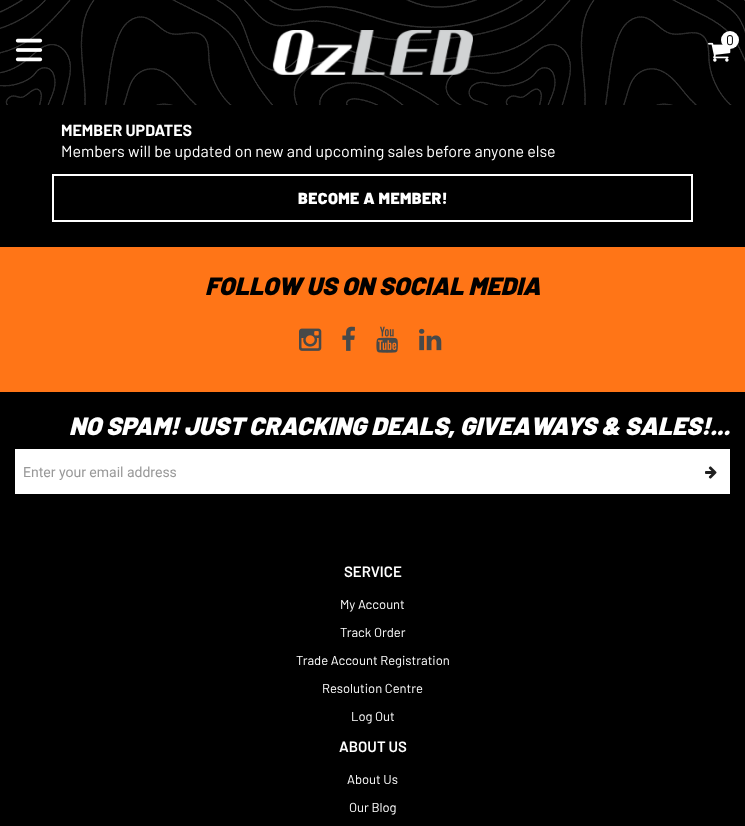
<svg xmlns="http://www.w3.org/2000/svg" width="745" height="826">
<style>
.a{font:14px Barlow;fill:#000}
.b{font:bold 16px Barlow;fill:#fff}
.c{font:16px Barlow;fill:#fff}
.d{font:900 16px Barlow;letter-spacing:0.4px;fill:#fff}
.e{font:italic 900 25px Barlow;fill:#000}
.f{font:italic 900 25px Barlow;fill:#fff}
.g{font:14px Roboto;fill:#999}
.h{font:600 15px Barlow;fill:#fff}
.i{font:13px Barlow;fill:#fff}
</style>
<rect width="100%" height="100%" fill="#000"/>
<image href="1.png" x="0" y="0" width="745" height="105"/>
<image href="2.png" x="15" y="38" width="28" height="24"/>
<image href="3.png" x="272" y="30" width="201" height="45"/>
<image href="4.png" x="708" y="42" width="23" height="20"/>
<circle fill="#fff" cx="730" cy="40" r="9"/>
<path fill="none" stroke="#fff" stroke-width="2" d="M53 175h639v46H53z"/>
<path fill="#ff7517" d="M0 247h745v145H0z"/>
<image href="5.png" x="299" y="328" width="23" height="23"/>
<image href="6.png" x="342" y="326" width="13" height="25"/>
<image href="7.png" x="376" y="326" width="22" height="27"/>
<image href="8.png" x="419" y="328" width="23" height="23"/>
<path fill="#fff" d="M15 449h715v45H15z"/>
<image href="9.png" x="705" y="466" width="12" height="13"/>
<text class="a" x="726" y="45">0</text>
<text class="b" x="61" y="136">MEMBER UPDATES</text>
<text class="c" x="61" y="157">Members will be updated on new and upcoming sales before anyone else</text>
<text class="d" x="298" y="204">BECOME A MEMBER!</text>
<text class="e" x="205" y="295">FOLLOW US ON SOCIAL MEDIA</text>
<text class="f" x="69" y="435">NO SPAM! JUST CRACKING DEALS, GIVEAWAYS &amp; SALES!...</text>
<text class="g" x="23" y="477">Enter your email address</text>
<text class="h" x="344" y="577">SERVICE</text>
<text class="i" x="340" y="609">My Account</text>
<text class="i" x="340" y="637">Track Order</text>
<text class="i" x="296" y="665">Trade Account Registration</text>
<text class="i" x="322" y="693">Resolution Centre</text>
<text class="i" x="351" y="721">Log Out</text>
<text class="h" x="339" y="752">ABOUT US</text>
<text class="i" x="347" y="784">About Us</text>
<text class="i" x="349" y="812">Our Blog</text>
</svg>
